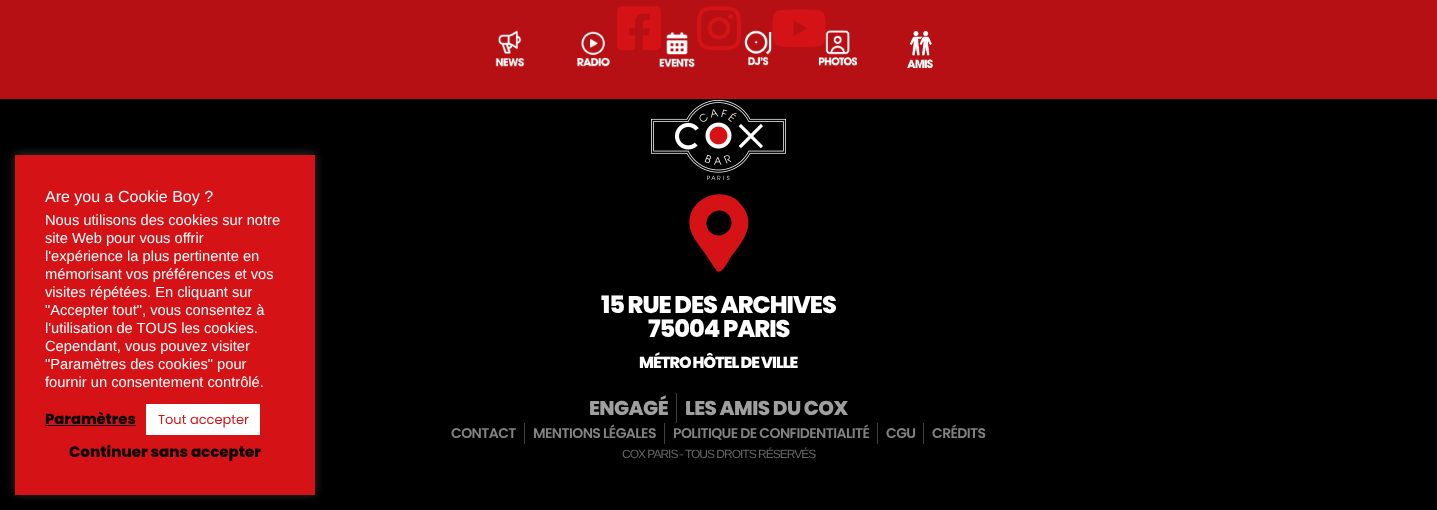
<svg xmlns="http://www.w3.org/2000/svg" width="1437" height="510">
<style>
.a{font:16px Liberation Sans;fill:#fff}
.b{font:14.7px Liberation Sans;fill:#fff}
.c{font:800 14.7px Poppins;fill:#0a0000}
.d{font:13px Poppins;fill:#d51317}
.e{font:800 15px Poppins;fill:#0a0000}
.f{font:800 24px Poppins;letter-spacing:-1px;fill:#fff}
.g{font:800 16px Poppins;letter-spacing:-1px;fill:#fff}
.h{font:800 20px Poppins;letter-spacing:-0.6px;fill:#9f9f9f}
.i{font:600 14px Poppins;letter-spacing:-0.6px;fill:#848181}
.j{font:12px Liberation Sans;letter-spacing:-1px;fill:#666}
</style>
<rect width="100%" height="100%" fill="#000"/>
<path fill="#b71014" d="M0 0h1437v99H0z"/>
<image href="1.png" x="495" y="30" width="30" height="37"/>
<image href="2.png" x="577" y="31" width="33" height="36"/>
<image href="7.png" x="617" y="6" width="44" height="45"/>
<image href="3.png" x="659" y="32" width="36" height="36"/>
<image href="4.png" x="744" y="30" width="28" height="36"/>
<image href="9.png" x="772" y="9" width="54" height="38"/>
<image href="5.png" x="818" y="30" width="40" height="36"/>
<image href="6.png" x="907" y="30" width="26" height="39"/>
<path fill="#acabab4d" filter="blur(5px)" d="M15 154h300v340H15z"/>
<path fill="#d51317" d="M15 155h300v340H15z"/>
<path fill="#0a0000" d="M45 425h91v1H45z"/>
<path fill="#fff" d="M146 404h114v31H146z"/>
<image href="8.png" x="697" y="6" width="44" height="45"/>
<image href="10.png" x="651" y="100" width="135" height="80"/>
<path fill="#d51317" d="M716 270l-12-18c-5-7-12-15-14-24c-6-30 36-47 53-21c14 19-2 36-13 51c-1 3-7 12-9 13c-2 1-4 1-5-1zm-6-38c12 11 29-6 18-18c-12-11-29 6-18 18z"/>
<path fill="#3f3f3f" d="M676 393h1v30H676z"/>
<path fill="#3f3f3f" d="M524 423h1v21H524z"/>
<path fill="#3f3f3f" d="M664 423h1v21H664z"/>
<path fill="#3f3f3f" d="M877 423h1v21H877z"/>
<path fill="#3f3f3f" d="M923 423h1v21H923z"/>
<text class="a" x="45" y="202">Are you a Cookie Boy ?</text>
<text class="b" x="45" y="225">Nous utilisons des cookies sur notre</text>
<text class="b" x="45" y="243">site Web pour vous offrir</text>
<text class="b" x="45" y="261">l'expérience la plus pertinente en</text>
<text class="b" x="45" y="279">mémorisant vos préférences et vos</text>
<text class="b" x="45" y="297">visites répétées. En cliquant sur</text>
<text class="b" x="45" y="315">"Accepter tout", vous consentez à</text>
<text class="b" x="45" y="333">l'utilisation de TOUS les cookies.</text>
<text class="b" x="45" y="351">Cependant, vous pouvez visiter</text>
<text class="b" x="45" y="369">"Paramètres des cookies" pour</text>
<text class="b" x="45" y="387">fournir un consentement contrôlé.</text>
<text class="c" x="45" y="424">Paramètres</text>
<text class="d" x="158" y="424">Tout accepter</text>
<text class="e" x="69" y="457">Continuer sans accepter</text>
<text class="f" x="601" y="313">15 RUE DES ARCHIVES</text>
<text class="f" x="648" y="337">75004 PARIS</text>
<text class="g" x="639" y="368">MÉTRO HÔTEL DE VILLE</text>
<text class="h" x="589" y="415">ENGAGÉ</text>
<text class="h" x="685" y="415">LES AMIS DU COX</text>
<text class="i" x="451" y="438">CONTACT</text>
<text class="i" x="533" y="438">MENTIONS LÉGALES</text>
<text class="i" x="673" y="438">POLITIQUE DE CONFIDENTIALITÉ</text>
<text class="i" x="886" y="438">CGU</text>
<text class="i" x="932" y="438">CRÉDITS</text>
<text class="j" x="622" y="458">COX PARIS - TOUS DROITS RÉSERVÉS</text>
</svg>
